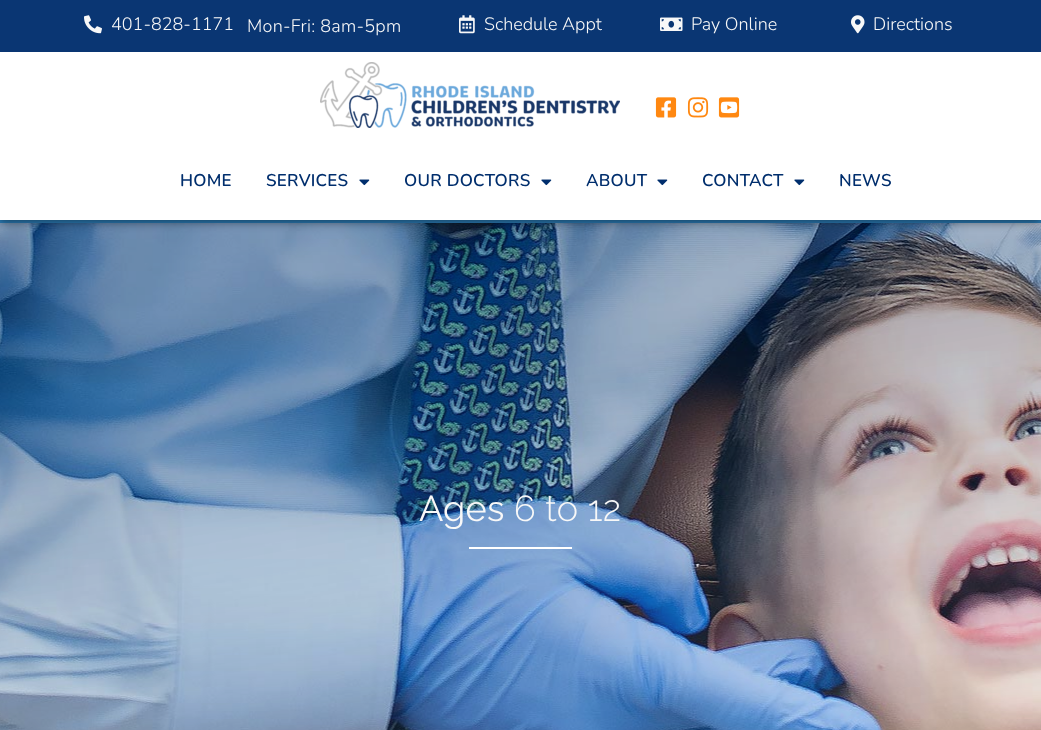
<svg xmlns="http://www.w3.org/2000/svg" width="1041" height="730">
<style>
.a{font:300 18px Nunito;fill:#f8f8f8}
.b{font:300 18px Nunito;letter-spacing:0.25px;fill:#f8f8f8}
.c{font:600 17px Nunito;letter-spacing:0.25px;fill:#002e6d}
.d{font:36px Raleway;letter-spacing:0.25px;fill:#f8f8f8}
.e{font:300 36px Raleway;letter-spacing:0.25px;fill:#f8f8f8}
</style>
<defs>
<clipPath id="clip1"><path d="M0 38h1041v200h-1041zm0 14h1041v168h-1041z" clip-rule="evenodd"/></clipPath>
</defs>
<rect width="100%" height="100%" fill="#fff"/>
<image href="10.png" x="0" y="223" width="1041" height="507"/>
<path fill="#2b7cb6" d="M0 220h1041v3H0z"/>
<g clip-path="url(#clip1)">
<path fill="#00000080" filter="blur(5px)" d="M0 54h1041v168H0z"/>
</g>
<path fill="#002e6df5" d="M0 0h1041v52H0z"/>
<image href="1.png" x="84" y="15" width="18" height="19"/>
<image href="2.png" x="459" y="15" width="16" height="19"/>
<image href="3.png" x="660" y="17" width="23" height="14"/>
<image href="4.png" x="851" y="15" width="14" height="19"/>
<image href="5.png" x="320" y="62" width="300" height="66"/>
<image href="6.png" x="655" y="97" width="22" height="21"/>
<image href="7.png" x="687" y="97" width="22" height="21"/>
<image href="8.png" x="718" y="97" width="22" height="21"/>
<image href="9.png" x="359" y="179" width="11" height="7"/>
<image href="9.png" x="541" y="179" width="11" height="7"/>
<image href="9.png" x="657" y="179" width="11" height="7"/>
<image href="9.png" x="794" y="179" width="11" height="7"/>
<path fill="#fff" d="M469 547h103v2H469z"/>
<text class="a" x="111" y="30">401-828-1171</text>
<text class="b" x="247" y="32">Mon-Fri: 8am-5pm</text>
<text class="a" x="484" y="30">Schedule Appt</text>
<text class="a" x="691" y="30">Pay Online</text>
<text class="a" x="873" y="30">Directions</text>
<text class="c" x="180" y="186">HOME</text>
<text class="c" x="266" y="186">SERVICES</text>
<text class="c" x="404" y="186">OUR DOCTORS</text>
<text class="c" x="586" y="186">ABOUT</text>
<text class="c" x="702" y="186">CONTACT</text>
<text class="c" x="839" y="186">NEWS</text>
<text class="d" x="419" y="521">Ages</text>
<text class="e" x="514" y="521">6 to 12</text>
</svg>
